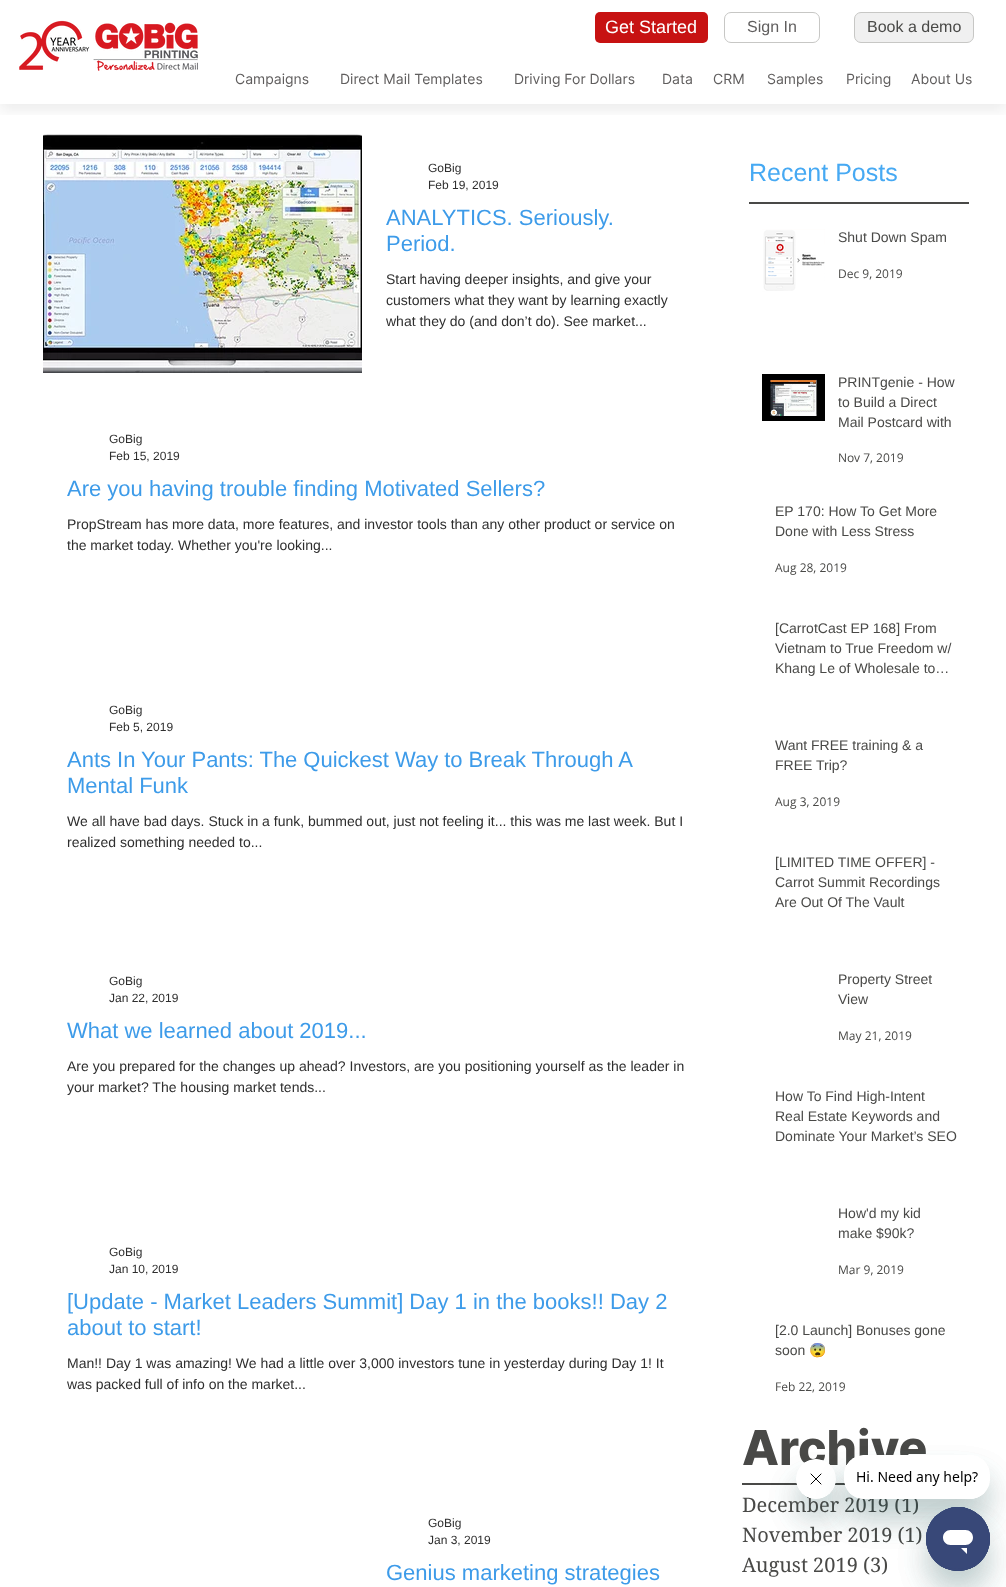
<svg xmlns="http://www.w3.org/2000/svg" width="1006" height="1587">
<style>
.a{font:18px Liberation Sans;fill:#fff}
.b{font:16px Liberation Sans;fill:#605e5e}
.c{font:16px Liberation Sans;fill:#494947}
.d{font:14px Inter;fill:#605e5e}
.e{font:12px Liberation Sans;fill:#2e2e2e}
.f{font:22px Liberation Sans;fill:#3d9be9}
.g{font:14px Liberation Sans;fill:#2e2e2e}
.h{font:25px Liberation Sans;fill:#46a9f3}
.i{font:14px Liberation Sans;fill:#494947}
.j{font:12px Open Sans;fill:#494947}
.k{font:14px Noto Color Emoji;fill:#494947}
.l{font:800 48px Inter;fill:#494947}
.m{font:20px 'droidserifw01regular';fill:#494947}
</style>
<defs>
<clipPath id="clip1"><path d="M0 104h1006v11H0z"/></clipPath>
<clipPath id="clip2"><path d="M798 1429h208v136h-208zm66 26h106c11 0 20 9 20 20v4c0 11-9 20-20 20h-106c-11 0-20-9-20-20v-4c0-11 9-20 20-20z" clip-rule="evenodd"/></clipPath>
</defs>
<rect width="100%" height="100%" fill="#fff"/>
<g clip-path="url(#clip1)">
<path fill="#00000012" filter="blur(7px)" d="M0 7h1006v104H0z"/>
</g>
<image href="1.png" x="19" y="20" width="71" height="50"/>
<image href="2.png" x="93" y="22" width="105" height="49"/>
<rect fill="#c71212" x="595" y="12" width="113" height="31" rx="5"/>
<rect fill="none" stroke="#c7c7c5" x="724.5" y="12.5" width="95" height="30" rx="6.5"/>
<rect fill="#f0f0f0" stroke="#c7c7c5" x="854.5" y="12.5" width="119" height="30" rx="6.5"/>
<image href="3.png" x="43" y="134" width="319" height="239"/>
<path fill="#494947" d="M749 202h220v2H749z"/>
<image href="4.png" x="762" y="229" width="63" height="63"/>
<image href="5.png" x="762" y="374" width="63" height="46"/>
<path fill="#000" d="M762 420h63v1H762z"/>
<path fill="#494947" d="M742 1483h103v2H742z"/>
<rect fill="#17494d26" filter="blur(15px)" x="796" y="1479" width="40" height="40" rx="20"/>
<text class="a" x="605" y="33">Get Started</text>
<text class="b" x="747" y="32">Sign In</text>
<text class="c" x="867" y="32">Book a demo</text>
<text class="d" x="235" y="84">Campaigns</text>
<text class="d" x="340" y="84">Direct Mail Templates</text>
<text class="d" x="514" y="84">Driving For Dollars</text>
<text class="d" x="662" y="84">Data</text>
<text class="d" x="713" y="84">CRM</text>
<text class="d" x="767" y="84">Samples</text>
<text class="d" x="846" y="84">Pricing</text>
<text class="d" x="911" y="84">About Us</text>
<text class="e" x="428" y="172">GoBig</text>
<text class="e" x="428" y="189">Feb 19, 2019</text>
<text class="f" x="386" y="225">ANALYTICS. Seriously.</text>
<text class="f" x="386" y="251">Period.</text>
<text class="g" x="386" y="284">Start having deeper insights, and give your</text>
<text class="g" x="386" y="305">customers what they want by learning exactly</text>
<text class="g" x="386" y="326">what they do (and don’t do). See market...</text>
<text class="e" x="109" y="443">GoBig</text>
<text class="e" x="109" y="460">Feb 15, 2019</text>
<text class="f" x="67" y="496">Are you having trouble finding Motivated Sellers?</text>
<text class="g" x="67" y="529">PropStream has more data, more features, and investor tools than any other product or service on</text>
<text class="g" x="67" y="550">the market today. Whether you're looking...</text>
<text class="e" x="109" y="714">GoBig</text>
<text class="e" x="109" y="731">Feb 5, 2019</text>
<text class="f" x="67" y="767" word-spacing="-0.1">Ants In Your Pants: The Quickest Way to Break Through A</text>
<text class="f" x="67" y="793">Mental Funk</text>
<text class="g" x="67" y="826">We all have bad days. Stuck in a funk, bummed out, just not feeling it... this was me last week. But I</text>
<text class="g" x="67" y="847">realized something needed to...</text>
<text class="e" x="109" y="985">GoBig</text>
<text class="e" x="109" y="1002">Jan 22, 2019</text>
<text class="f" x="67" y="1038">What we learned about 2019...</text>
<text class="g" x="67" y="1071">Are you prepared for the changes up ahead? Investors, are you positioning yourself as the leader in</text>
<text class="g" x="67" y="1092">your market? The housing market tends...</text>
<text class="e" x="109" y="1256">GoBig</text>
<text class="e" x="109" y="1273">Jan 10, 2019</text>
<text class="f" x="67" y="1309">[Update - Market Leaders Summit] Day 1 in the books!! Day 2</text>
<text class="f" x="67" y="1335">about to start!</text>
<text class="g" x="67" y="1368">Man!! Day 1 was amazing! We had a little over 3,000 investors tune in yesterday during Day 1! It</text>
<text class="g" x="67" y="1389">was packed full of info on the market...</text>
<text class="e" x="428" y="1527">GoBig</text>
<text class="e" x="428" y="1544">Jan 3, 2019</text>
<text class="f" x="386" y="1580">Genius marketing strategies</text>
<text class="h" x="749" y="181">Recent Posts</text>
<text class="i" x="838" y="242">Shut Down Spam</text>
<text class="j" x="838" y="278">Dec 9, 2019</text>
<text class="i" x="838" y="387">PRINTgenie - How</text>
<text class="i" x="838" y="407">to Build a Direct</text>
<text class="i" x="838" y="427">Mail Postcard with</text>
<text class="j" x="838" y="462">Nov 7, 2019</text>
<text class="i" x="775" y="516">EP 170: How To Get More</text>
<text class="i" x="775" y="536">Done with Less Stress</text>
<text class="j" x="775" y="572">Aug 28, 2019</text>
<text class="i" x="775" y="633">[CarrotCast EP 168] From</text>
<text class="i" x="775" y="653">Vietnam to True Freedom w/</text>
<text class="i" x="775" y="673">Khang Le of Wholesale to…</text>
<text class="i" x="775" y="750">Want FREE training &amp; a</text>
<text class="i" x="775" y="770">FREE Trip?</text>
<text class="j" x="775" y="806">Aug 3, 2019</text>
<text class="i" x="775" y="867">[LIMITED TIME OFFER] -</text>
<text class="i" x="775" y="887">Carrot Summit Recordings</text>
<text class="i" x="775" y="907">Are Out Of The Vault</text>
<text class="i" x="838" y="984">Property Street</text>
<text class="i" x="838" y="1004">View</text>
<text class="j" x="838" y="1040">May 21, 2019</text>
<text class="i" x="775" y="1101">How To Find High-Intent</text>
<text class="i" x="775" y="1121">Real Estate Keywords and</text>
<text class="i" x="775" y="1141">Dominate Your Market’s SEO</text>
<text class="i" x="838" y="1218">How'd my kid</text>
<text class="i" x="838" y="1238">make $90k?</text>
<text class="j" x="838" y="1274">Mar 9, 2019</text>
<text class="i" x="775" y="1335">[2.0 Launch] Bonuses gone</text>
<text class="i" x="775" y="1355">soon</text>
<text class="k" x="809" y="1355">😨</text>
<text class="j" x="775" y="1391">Feb 22, 2019</text>
<text class="l" x="742" y="1465">Archive</text>
<text class="m" x="742" y="1512">December 2019 (1)</text>
<text class="m" x="742" y="1542">November 2019 (1)</text>
<text class="m" x="742" y="1572">August 2019 (3)</text>
<image href="7.png" x="796" y="1459" width="40" height="40"/>
<g clip-path="url(#clip2)">
<rect fill="#17494d26" filter="blur(15px)" x="844" y="1475" width="146" height="44" rx="20"/>
</g>
<image href="6.png" x="844" y="1455" width="140" height="44"/>
<rect fill="#17494d26" filter="blur(15px)" x="926" y="1527" width="64" height="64" rx="32"/>
<image href="8.png" x="926" y="1507" width="64" height="64"/>
<rect fill="#17494d26" filter="blur(15px)" x="796" y="1479" width="40" height="40" rx="20"/>
<image href="10.png" x="796" y="1459" width="40" height="40"/>
<g clip-path="url(#clip2)">
<rect fill="#17494d26" filter="blur(15px)" x="844" y="1475" width="146" height="44" rx="20"/>
</g>
<image href="9.png" x="844" y="1455" width="141" height="44"/>
<rect fill="#17494d26" filter="blur(15px)" x="926" y="1527" width="64" height="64" rx="32"/>
<image href="11.png" x="926" y="1507" width="64" height="64"/>
</svg>
